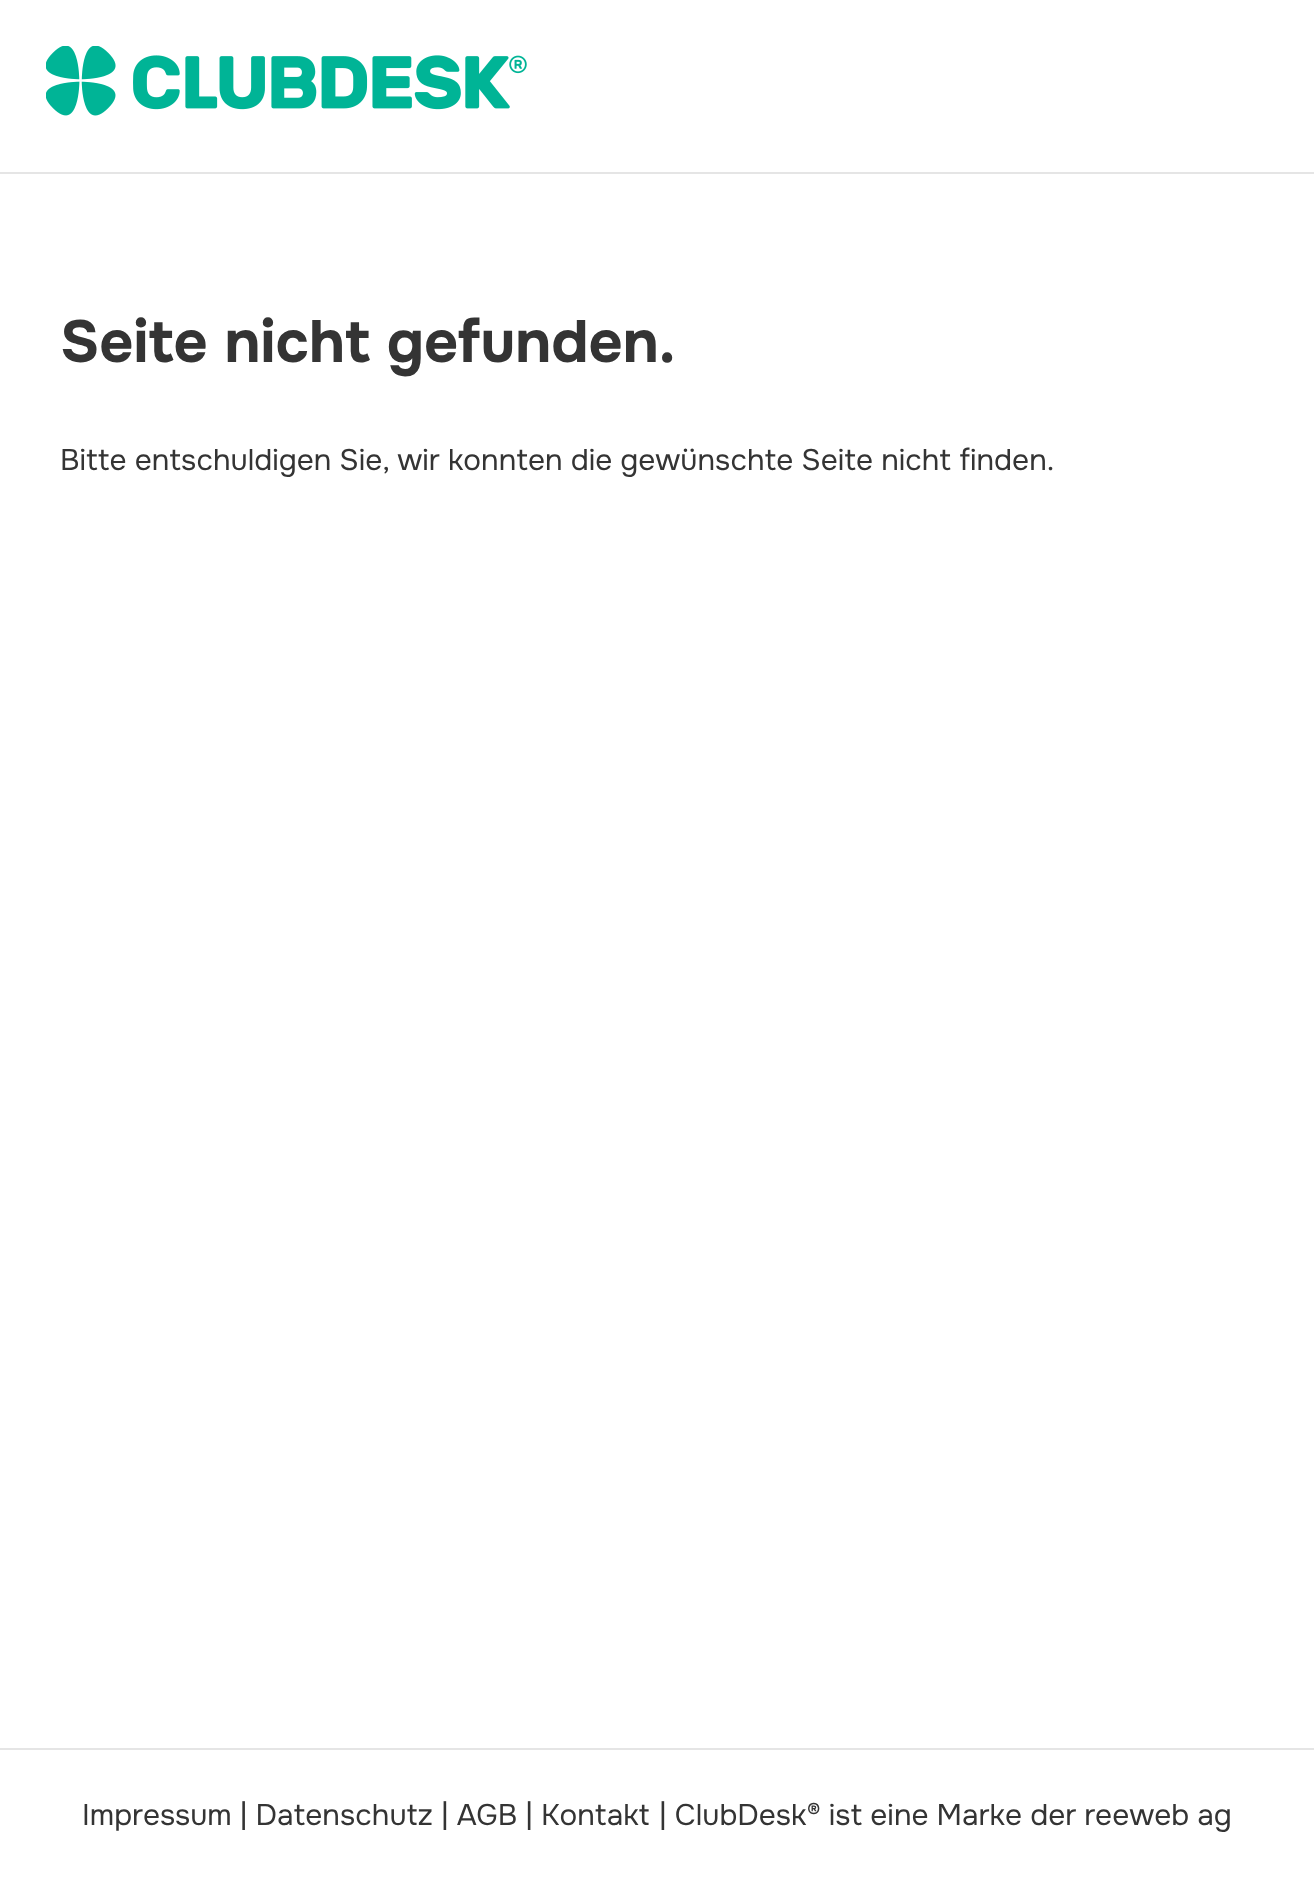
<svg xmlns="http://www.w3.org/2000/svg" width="1314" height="1883">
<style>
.a{font:bold 59.5px Onest;fill:#343434}
.b{font:29.75px Onest;fill:#343434}
</style>
<rect width="100%" height="100%" fill="#fff"/>
<path fill="#e5e5e5" d="M0 172h1314v2H0z"/>
<image href="1.png" x="46" y="46" width="481" height="70"/>
<path fill="#e5e5e5" d="M0 1748h1314v2H0z"/>
<text class="a" x="60" y="362">Seite nicht gefunden.</text>
<text class="b" x="60" y="470">Bitte entschuldigen Sie, wir konnten die gewünschte Seite nicht finden.</text>
<text class="b" x="82" y="1825">Impressum | Datenschutz | AGB | Kontakt</text>
<text class="b" x="659" y="1825">| ClubDesk® ist eine Marke der reeweb ag</text>
</svg>
